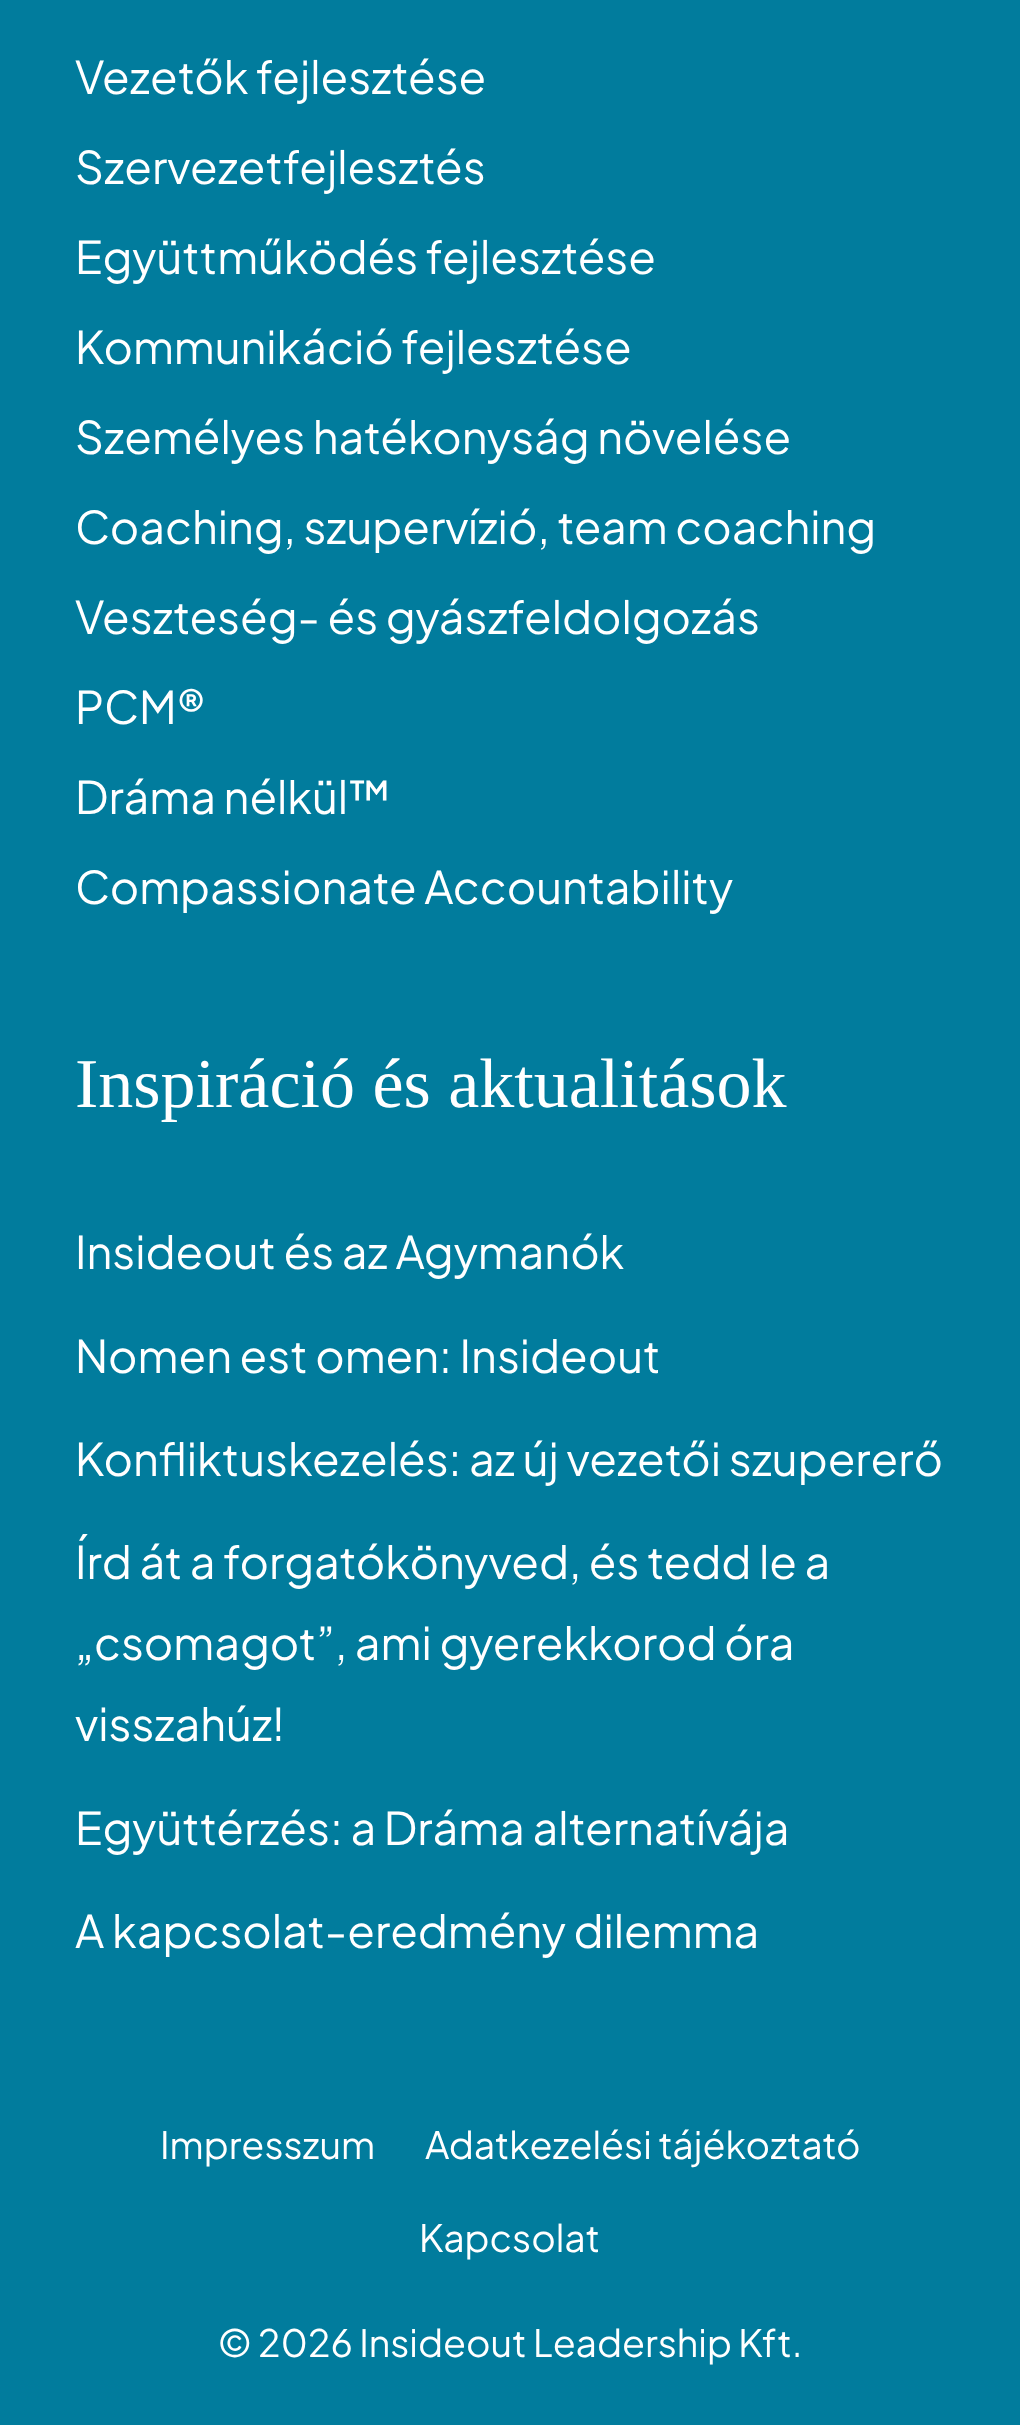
<svg xmlns="http://www.w3.org/2000/svg" width="1020" height="2425">
<style>
.a{font:45px Plus Jakarta Sans;fill:#fff}
.b{font:70px Liberation Serif;fill:#fff}
.c{font:37.5px Plus Jakarta Sans;fill:#fff}
</style>
<rect width="100%" height="100%" fill="#017c9d"/>
<text class="a" x="75" y="94">Vezetők fejlesztése</text>
<text class="a" x="75" y="184">Szervezetfejlesztés</text>
<text class="a" x="75" y="274">Együttműködés fejlesztése</text>
<text class="a" x="75" y="364">Kommunikáció fejlesztése</text>
<text class="a" x="75" y="454">Személyes hatékonyság növelése</text>
<text class="a" x="75" y="544">Coaching, szupervízió, team coaching</text>
<text class="a" x="75" y="634">Veszteség- és gyászfeldolgozás</text>
<text class="a" x="75" y="724">PCM®</text>
<text class="a" x="75" y="814">Dráma nélkül™</text>
<text class="a" x="75" y="904">Compassionate Accountability</text>
<text class="b" x="75" y="1107">Inspiráció és aktualitások</text>
<text class="a" x="75" y="1269">Insideout és az Agymanók</text>
<text class="a" x="75" y="1373">Nomen est omen: Insideout</text>
<text class="a" x="75" y="1476">Konfliktuskezelés: az új vezetői szupererő</text>
<text class="a" x="75" y="1579">Írd át a forgatókönyved, és tedd le a</text>
<text class="a" x="75" y="1660">„csomagot”, ami gyerekkorod óra</text>
<text class="a" x="75" y="1741">visszahúz!</text>
<text class="a" x="75" y="1845">Együttérzés: a Dráma alternatívája</text>
<text class="a" x="75" y="1948">A kapcsolat-eredmény dilemma</text>
<text class="c" x="160" y="2159">Impresszum</text>
<text class="c" x="425" y="2159">Adatkezelési tájékoztató</text>
<text class="c" x="419" y="2252">Kapcsolat</text>
<text class="c" x="218" y="2357">© 2026 Insideout Leadership Kft.</text>
</svg>
